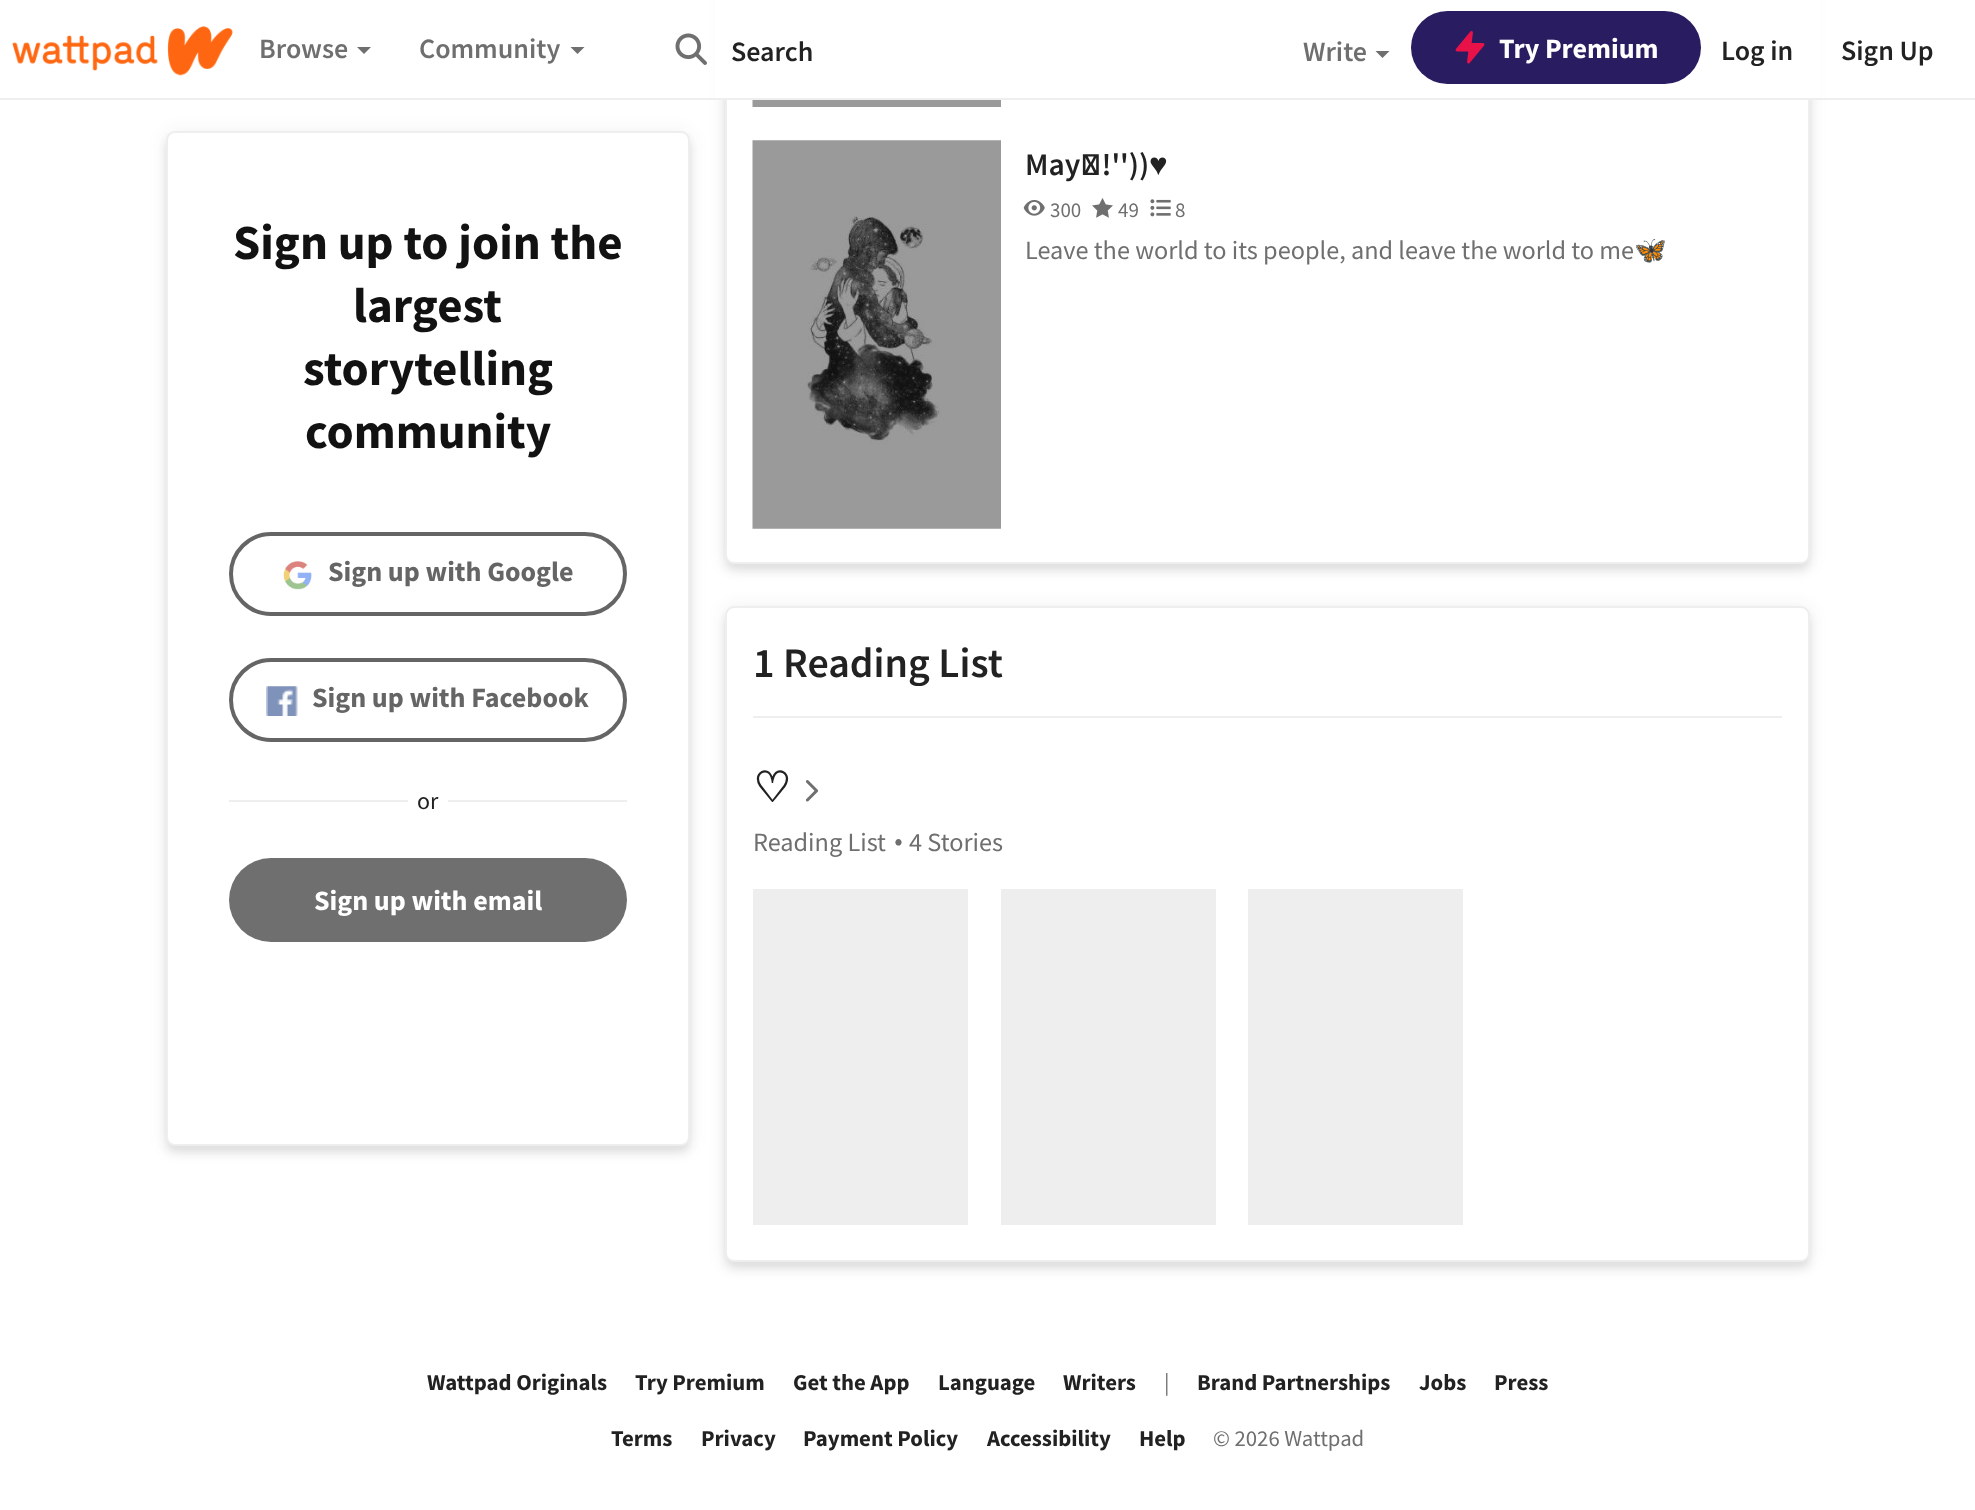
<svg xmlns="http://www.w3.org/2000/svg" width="1975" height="1510">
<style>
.a{font:600 28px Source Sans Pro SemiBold;fill:#6f6f6f}
.b{font:600 28px Source Sans Pro SemiBold;fill:#222}
.c{font:bold 28px Source Sans Pro;fill:#fff}
.d{font:bold 49px Source Sans Pro;fill:#121212}
.e{font:bold 28px Source Sans Pro;fill:#656565}
.f{font:24px Source Sans Pro;fill:#222}
.g{font:600 31.5px Source Sans Pro SemiBold;fill:#222}
.h{font:bold 31.5px Liberation Sans;fill:#222}
.i{font:21px Source Sans Pro;fill:#6f6f6f}
.j{font:26.25px Source Sans Pro;fill:#6f6f6f}
.k{font:26.25px Noto Color Emoji;fill:#6f6f6f}
.l{font:600 42px Source Sans Pro SemiBold;fill:#222}
.m{font:bold 42px DejaVu Sans;fill:#222}
.n{font:52px Source Sans Pro;fill:#6f6f6f}
.o{font:bold 22.75px Source Sans Pro;fill:#222}
.p{font:22.75px Source Sans Pro;fill:#6f6f6f}
</style>
<rect width="100%" height="100%" fill="#fff"/>
<rect fill="#2222221a" filter="blur(4.5px)" x="725" y="-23" width="1085" height="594" rx="9"/>
<rect fill="#22222214" filter="blur(9px)" x="725" y="-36" width="1085" height="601" rx="9"/>
<rect fill="#fff" stroke="#eee" stroke-width="2" x="726" y="-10" width="1083" height="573" rx="8"/>
<path fill="#fff" d="M715 0h1105v98H715z"/>
<path fill="#eee" d="M0 98h1975v2H0z"/>
<image href="1.png" x="12" y="26" width="221" height="50"/>
<path fill="#6f6f6f" d="M357 47h14l-7 7z"/>
<path fill="#6f6f6f" d="M570.5 47h14l-7 7z"/>
<image href="2.png" x="675" y="33" width="32" height="32"/>
<path fill="#6f6f6f" d="M1375.5 51h14l-7 7z"/>
<rect fill="#2a1c60" x="1411" y="11" width="290" height="73" rx="36.5"/>
<path fill="#e81249" stroke="#e81249" stroke-width="2.9" stroke-linecap="round" stroke-linejoin="round" d="M1471.5 32.5l-14.5 17.5h13l-1.5 12l14.5-17.5h-13z"/>
<rect fill="#2222221a" filter="blur(4.5px)" x="166" y="138" width="524" height="1015" rx="9"/>
<rect fill="#22222214" filter="blur(9px)" x="166" y="133" width="524" height="1015" rx="9"/>
<rect fill="#fff" stroke="#eee" stroke-width="2" x="167" y="132" width="522" height="1013" rx="8"/>
<rect fill="none" stroke="#656565" stroke-width="4" x="231" y="534" width="394" height="80" rx="40"/>
<image href="3.png" x="283" y="561" width="29" height="29"/>
<rect fill="none" stroke="#656565" stroke-width="4" x="231" y="660" width="394" height="80" rx="40"/>
<image href="4.png" x="266" y="686" width="32" height="30"/>
<path fill="#eee" d="M229 800h179v2H229z"/>
<path fill="#eee" d="M448 800h179v2H448z"/>
<rect fill="#6f6f6f" x="229" y="858" width="398" height="84" rx="42"/>
<image href="5.png" x="752" y="100" width="249" height="7"/>
<image href="6.png" x="752" y="140" width="249" height="389"/>
<image href="7.png" x="1023" y="199" width="22" height="17"/>
<image href="8.png" x="1092" y="198" width="21" height="20"/>
<image href="9.png" x="1150" y="199" width="21" height="18"/>
<rect fill="#2222221a" filter="blur(4.5px)" x="725" y="613" width="1085" height="656" rx="9"/>
<rect fill="#22222214" filter="blur(9px)" x="725" y="607" width="1085" height="657" rx="9"/>
<rect fill="#fff" stroke="#eee" stroke-width="2" x="726" y="607" width="1083" height="654" rx="8"/>
<path fill="#eee" d="M753 716h1029v2H753z"/>
<image href="10.png" x="805" y="780" width="14" height="22"/>
<path fill="#eee" d="M753 889h215v336H753z"/>
<path fill="#eee" d="M1001 889h215v336H1001z"/>
<path fill="#eee" d="M1248 889h215v336H1248z"/>
<text class="a" x="259" y="58">Browse</text>
<text class="a" x="419" y="58">Community</text>
<text class="b" x="731" y="61">Search</text>
<text class="a" x="1303" y="61">Write</text>
<text class="c" x="1499" y="58">Try Premium</text>
<text class="b" x="1721" y="60">Log in</text>
<text class="b" x="1841" y="60">Sign Up</text>
<text class="d" x="233" y="259">Sign up to join the</text>
<text class="d" x="353" y="322">largest</text>
<text class="d" x="303" y="385">storytelling</text>
<text class="d" x="305" y="448">community</text>
<text class="e" x="328" y="581">Sign up with Google</text>
<text class="e" x="312" y="707">Sign up with Facebook</text>
<text class="f" x="417" y="809">or</text>
<text class="c" x="314" y="910">Sign up with email</text>
<text class="g" x="1025" y="175">May!َ''))</text>
<text class="h" x="1149" y="175">♥</text>
<text class="i" x="1050" y="217">300</text>
<text class="i" x="1118" y="217">49</text>
<text class="i" x="1175" y="217">8</text>
<text class="j" x="1025" y="259">Leave the world to its people, and leave the world to me</text>
<text class="k" x="1634" y="259">🦋</text>
<text class="l" x="753" y="677">1 Reading List</text>
<text class="m" x="753" y="802">♡︎</text>
<text class="j" x="753" y="851">Reading List</text>
<text class="n" x="892" y="859">·</text>
<text class="j" x="909" y="851">4 Stories</text>
<text class="o" x="427" y="1390">Wattpad Originals</text>
<text class="o" x="635" y="1390">Try Premium</text>
<text class="o" x="793" y="1390">Get the App</text>
<text class="o" x="938" y="1390">Language</text>
<text class="o" x="1063" y="1390">Writers</text>
<text class="p" x="1164" y="1390">|</text>
<text class="o" x="1197" y="1390">Brand Partnerships</text>
<text class="o" x="1419" y="1390">Jobs</text>
<text class="o" x="1494" y="1390">Press</text>
<text class="o" x="611" y="1446">Terms</text>
<text class="o" x="701" y="1446">Privacy</text>
<text class="o" x="803" y="1446">Payment Policy</text>
<text class="o" x="987" y="1446">Accessibility</text>
<text class="o" x="1139" y="1446">Help</text>
<text class="p" x="1213" y="1446">© 2026 Wattpad</text>
</svg>
